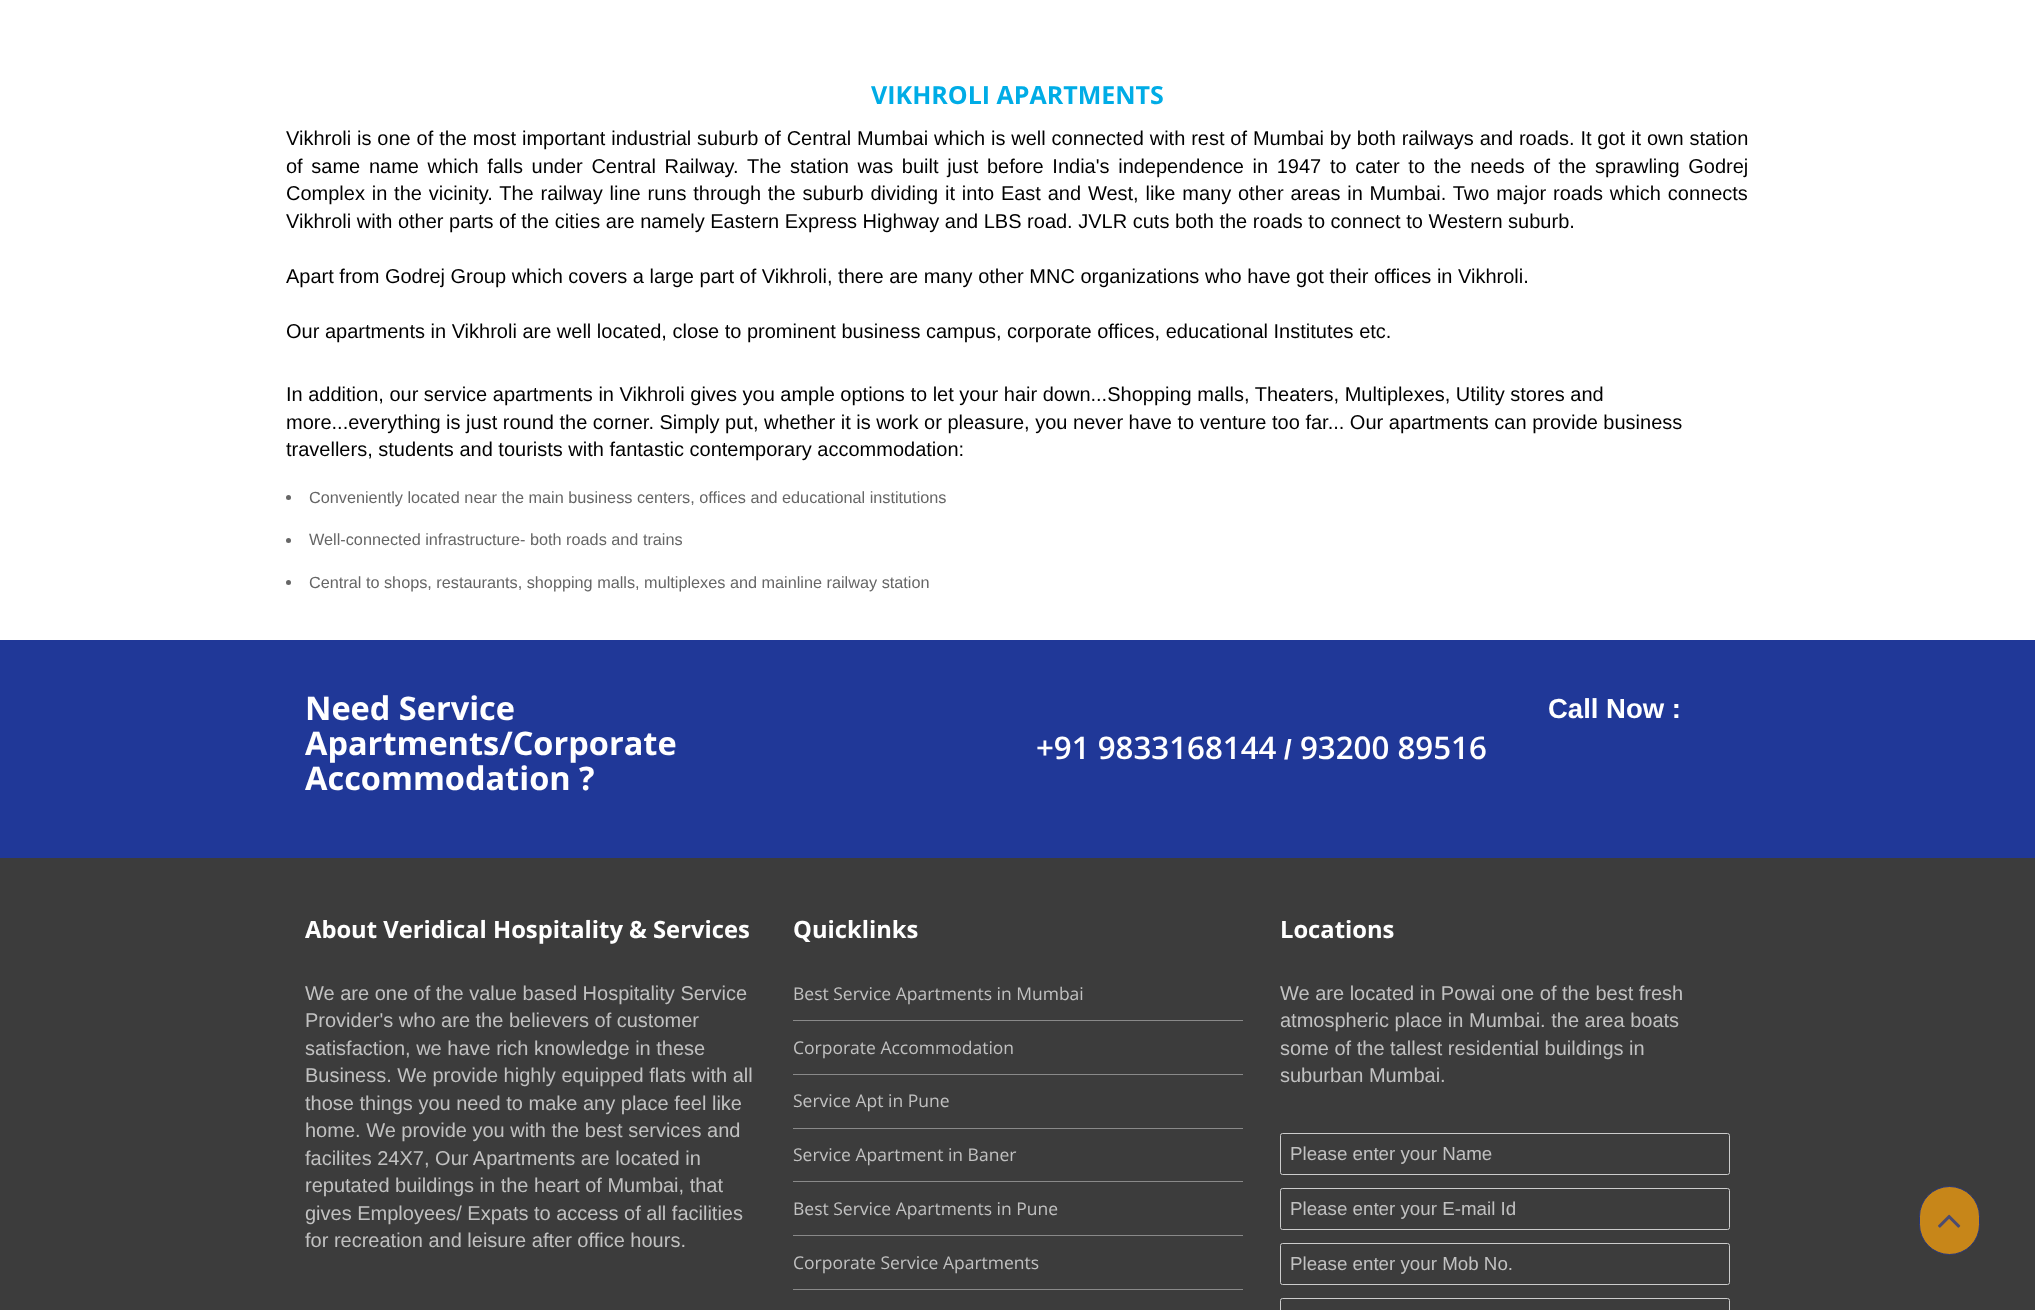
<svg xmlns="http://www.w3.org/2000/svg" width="2035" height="1310">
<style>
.a{font:bold 25px Open Sans;fill:#00ace6}
.b{font:20px Liberation Sans;fill:#000}
.c{font:16.25px Liberation Sans;fill:#666}
.d{font:bold 32.5px Open Sans;fill:#fff}
.e{font:bold 27.5px Liberation Sans;fill:#fff}
.f{font:600 31.25px Open Sans;fill:#fff}
.g{font:bold 23.75px Open Sans;fill:#fff}
.h{font:20px Liberation Sans;fill:#c1c1c1}
.i{font:17.5px Open Sans;fill:#c1c1c1}
.j{font:18.75px Liberation Sans;fill:#c1c1c1}
</style>
<rect width="100%" height="100%" fill="#fff"/>
<circle fill="#666" cx="288.5" cy="497.5" r="2.5"/>
<circle fill="#666" cx="288.5" cy="540.5" r="2.5"/>
<circle fill="#666" cx="288.5" cy="582.5" r="2.5"/>
<path fill="#203898" d="M0 640h2035v218H0z"/>
<path fill="#3c3c3c" d="M0 858h2035v452H0z"/>
<path fill="#898989" d="M793 1020h450v1H793z"/>
<path fill="#898989" d="M793 1074h450v1H793z"/>
<path fill="#898989" d="M793 1128h450v1H793z"/>
<path fill="#898989" d="M793 1181h450v1H793z"/>
<path fill="#898989" d="M793 1235h450v1H793z"/>
<path fill="#898989" d="M793 1289h450v1H793z"/>
<rect fill="none" stroke="#ccc" x="1280.5" y="1133.5" width="449" height="41" rx="2"/>
<rect fill="none" stroke="#ccc" x="1280.5" y="1188.5" width="449" height="41" rx="2"/>
<rect fill="none" stroke="#ccc" x="1280.5" y="1243.5" width="449" height="41" rx="2"/>
<rect fill="none" stroke="#ccc" x="1280.5" y="1298.5" width="449" height="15" rx="2"/>
<rect fill="#c78619" stroke="#28387b" x="1919.5" y="1186.5" width="60" height="68" rx="30"/>
<image href="1.png" x="1938" y="1214" width="23" height="14"/>
<text class="a" x="871" y="104">VIKHROLI APARTMENTS</text>
<text class="b" x="286" y="145" word-spacing="0.3">Vikhroli is one of the most important industrial suburb of Central Mumbai which is well connected with rest of Mumbai by both railways and roads. It got it own station</text>
<text class="b" x="286" y="173" word-spacing="3.1">of same name which falls under Central Railway. The station was built just before India's independence in 1947 to cater to the needs of the sprawling Godrej</text>
<text class="b" x="286" y="200" word-spacing="1.25">Complex in the vicinity. The railway line runs through the suburb dividing it into East and West, like many other areas in Mumbai. Two major roads which connects</text>
<text class="b" x="286" y="228">Vikhroli with other parts of the cities are namely Eastern Express Highway and LBS road. JVLR cuts both the roads to connect to Western suburb.</text>
<text class="b" x="286" y="283">Apart from Godrej Group which covers a large part of Vikhroli, there are many other MNC organizations who have got their offices in Vikhroli.</text>
<text class="b" x="286" y="338">Our apartments in Vikhroli are well located, close to prominent business campus, corporate offices, educational Institutes etc.</text>
<text class="b" x="286" y="401">In addition, our service apartments in Vikhroli gives you ample options to let your hair down...Shopping malls, Theaters, Multiplexes, Utility stores and</text>
<text class="b" x="286" y="429">more...everything is just round the corner. Simply put, whether it is work or pleasure, you never have to venture too far... Our apartments can provide business</text>
<text class="b" x="286" y="456">travellers, students and tourists with fantastic contemporary accommodation:</text>
<text class="c" x="309" y="503">Conveniently located near the main business centers, offices and educational institutions</text>
<text class="c" x="309" y="545">Well-connected infrastructure- both roads and trains</text>
<text class="c" x="309" y="588">Central to shops, restaurants, shopping malls, multiplexes and mainline railway station</text>
<text class="d" x="305" y="720">Need Service</text>
<text class="d" x="305" y="755">Apartments/Corporate</text>
<text class="d" x="305" y="790">Accommodation ?</text>
<text class="e" x="1548" y="718">Call Now :</text>
<text class="f" x="1036" y="759">+91 9833168144</text>
<text class="e" x="1284" y="759">/</text>
<text class="f" x="1300" y="759">93200 89516</text>
<text class="g" x="305" y="938">About Veridical Hospitality &amp; Services</text>
<text class="h" x="305" y="1000">We are one of the value based Hospitality Service</text>
<text class="h" x="305" y="1027">Provider's who are the believers of customer</text>
<text class="h" x="305" y="1055">satisfaction, we have rich knowledge in these</text>
<text class="h" x="305" y="1082">Business. We provide highly equipped flats with all</text>
<text class="h" x="305" y="1110">those things you need to make any place feel like</text>
<text class="h" x="305" y="1137">home. We provide you with the best services and</text>
<text class="h" x="305" y="1165">facilites 24X7, Our Apartments are located in</text>
<text class="h" x="305" y="1192">reputated buildings in the heart of Mumbai, that</text>
<text class="h" x="305" y="1220">gives Employees/ Expats to access of all facilities</text>
<text class="h" x="305" y="1247">for recreation and leisure after office hours.</text>
<text class="g" x="793" y="938">Quicklinks</text>
<text class="i" x="793" y="1000">Best Service Apartments in Mumbai</text>
<text class="i" x="793" y="1054">Corporate Accommodation</text>
<text class="i" x="793" y="1107">Service Apt in Pune</text>
<text class="i" x="793" y="1161">Service Apartment in Baner</text>
<text class="i" x="793" y="1215">Best Service Apartments in Pune</text>
<text class="i" x="793" y="1269">Corporate Service Apartments</text>
<text class="g" x="1280" y="938">Locations</text>
<text class="h" x="1280" y="1000">We are located in Powai one of the best fresh</text>
<text class="h" x="1280" y="1027">atmospheric place in Mumbai. the area boats</text>
<text class="h" x="1280" y="1055">some of the tallest residential buildings in</text>
<text class="h" x="1280" y="1082">suburban Mumbai.</text>
<text class="j" x="1290" y="1160">Please enter your Name</text>
<text class="j" x="1290" y="1215">Please enter your E-mail Id</text>
<text class="j" x="1290" y="1270">Please enter your Mob No.</text>
</svg>
